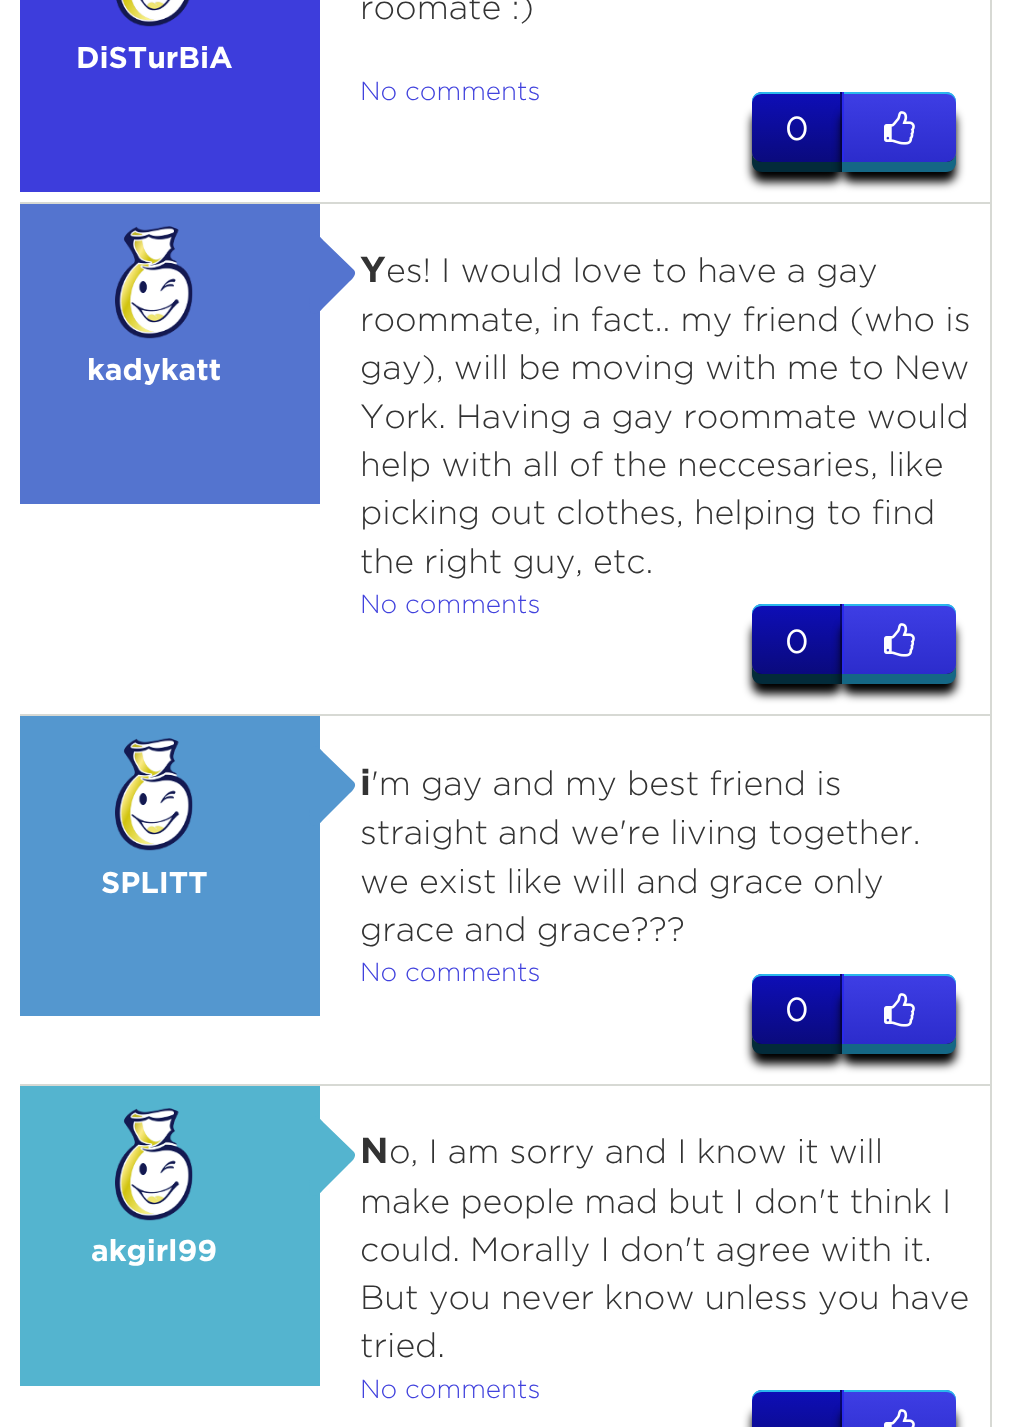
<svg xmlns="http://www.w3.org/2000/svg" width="1011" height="1427">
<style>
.a{font:bold 30px 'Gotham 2';fill:#fff}
.b{font:300 33.75px Gotham;fill:#333}
.c{font:300 26px Gotham;fill:#4142dd}
.d{font:bold 32px Gotham;fill:#fff}
.e{font:bold 36px 'Gotham 2';fill:#333}
</style>
<defs>
<linearGradient id="g1" gradientUnits="userSpaceOnUse" x1="752" y1="162" x2="752" y2="92"><stop offset="0" stop-color="#0a0a7d"/><stop offset="1" stop-color="#0e0eb8"/></linearGradient>
<linearGradient id="g2" gradientUnits="userSpaceOnUse" x1="844" y1="162" x2="844" y2="92"><stop offset="0" stop-color="#2c2ccc"/><stop offset="1" stop-color="#3e3ee5"/></linearGradient>
<linearGradient id="g3" gradientUnits="userSpaceOnUse" x1="752" y1="674" x2="752" y2="604"><stop offset="0" stop-color="#0a0a7d"/><stop offset="1" stop-color="#0e0eb8"/></linearGradient>
<linearGradient id="g4" gradientUnits="userSpaceOnUse" x1="844" y1="674" x2="844" y2="604"><stop offset="0" stop-color="#2c2ccc"/><stop offset="1" stop-color="#3e3ee5"/></linearGradient>
<linearGradient id="g5" gradientUnits="userSpaceOnUse" x1="752" y1="1044" x2="752" y2="974"><stop offset="0" stop-color="#0a0a7d"/><stop offset="1" stop-color="#0e0eb8"/></linearGradient>
<linearGradient id="g6" gradientUnits="userSpaceOnUse" x1="844" y1="1044" x2="844" y2="974"><stop offset="0" stop-color="#2c2ccc"/><stop offset="1" stop-color="#3e3ee5"/></linearGradient>
<linearGradient id="g7" gradientUnits="userSpaceOnUse" x1="752" y1="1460" x2="752" y2="1390"><stop offset="0" stop-color="#0a0a7d"/><stop offset="1" stop-color="#0e0eb8"/></linearGradient>
<linearGradient id="g8" gradientUnits="userSpaceOnUse" x1="844" y1="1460" x2="844" y2="1390"><stop offset="0" stop-color="#2c2ccc"/><stop offset="1" stop-color="#3e3ee5"/></linearGradient>
</defs>
<rect width="100%" height="100%" fill="#fff"/>
<path fill="#d7d9d4" d="M990 0h2v1427H990z"/>
<path fill="#3d3ddc" d="M20 0h300v192H20z"/>
<image href="1.png" x="116" y="0" width="74" height="27"/>
<rect fill="#000" filter="blur(5px)" x="752" y="112" width="90" height="70" rx="10"/>
<path fill="#032b3a" d="M752 152v10c0 6 4 10 10 10h80v-10h-80c-6 0-10-4-10-10z"/>
<path fill="url(#g1)" d="M762 92h80v70h-80c-5.5 0-10-4.5-10-10v-50c0-5.5 4.5-10 10-10z"/>
<path fill="#2ab7ec" d="M762 94h78v-2h-78c-6 0-10 4-10 10v2c0-6 4-10 10-10z"/>
<path fill="#07076e" d="M840 92h2v70H840z"/>
<rect fill="#000" filter="blur(5px)" x="842" y="112" width="114" height="70" rx="10"/>
<path fill="#156785" d="M842 162v10h104c6 0 10-4 10-10v-10c0 6-4 10-10 10z"/>
<path fill="url(#g2)" d="M842 92h104c5.5 0 10 4.5 10 10v50c0 5.5-4.5 10-10 10h-104z"/>
<path fill="#2ab7ec" d="M844 94h102c6 0 10 4 10 10v-2c0-6-4-10-10-10h-102z"/>
<path fill="#2a2aec" d="M842 92h2v70H842z"/>
<image href="2.png" x="884" y="111" width="31" height="34"/>
<path fill="#d7d9d4" d="M20 202h972v2H20z"/>
<path fill="#5474cf" d="M20 204h300v300H20z"/>
<path fill="#5474cf" d="M354 270c4 5-4 11-6 13l-24 24c-2 2-8 10-13 6c-3-4-1-14-1-16v-59c1-2 2-3 3-3c4-3 9 4 11 6z"/>
<image href="3.png" x="115" y="226" width="78" height="113"/>
<rect fill="#000" filter="blur(5px)" x="752" y="624" width="90" height="70" rx="10"/>
<path fill="#032b3a" d="M752 664v10c0 6 4 10 10 10h80v-10h-80c-6 0-10-4-10-10z"/>
<path fill="url(#g3)" d="M762 604h80v70h-80c-5.5 0-10-4.5-10-10v-50c0-5.5 4.5-10 10-10z"/>
<path fill="#2ab7ec" d="M762 606h78v-2h-78c-6 0-10 4-10 10v2c0-6 4-10 10-10z"/>
<path fill="#07076e" d="M840 604h2v70H840z"/>
<rect fill="#000" filter="blur(5px)" x="842" y="624" width="114" height="70" rx="10"/>
<path fill="#156785" d="M842 674v10h104c6 0 10-4 10-10v-10c0 6-4 10-10 10z"/>
<path fill="url(#g4)" d="M842 604h104c5.5 0 10 4.5 10 10v50c0 5.5-4.5 10-10 10h-104z"/>
<path fill="#2ab7ec" d="M844 606h102c6 0 10 4 10 10v-2c0-6-4-10-10-10h-102z"/>
<path fill="#2a2aec" d="M842 604h2v70H842z"/>
<image href="2.png" x="884" y="623" width="31" height="34"/>
<path fill="#d7d9d4" d="M20 714h972v2H20z"/>
<path fill="#5497cf" d="M20 716h300v300H20z"/>
<path fill="#5497cf" d="M354 782c4 5-4 11-6 13l-24 24c-2 2-8 10-13 6c-3-4-1-14-1-16v-59c1-2 2-3 3-3c4-3 9 4 11 6z"/>
<image href="4.png" x="115" y="738" width="78" height="113"/>
<rect fill="#000" filter="blur(5px)" x="752" y="994" width="90" height="70" rx="10"/>
<path fill="#032b3a" d="M752 1034v10c0 6 4 10 10 10h80v-10h-80c-6 0-10-4-10-10z"/>
<path fill="url(#g5)" d="M762 974h80v70h-80c-5.5 0-10-4.5-10-10v-50c0-5.5 4.5-10 10-10z"/>
<path fill="#2ab7ec" d="M762 976h78v-2h-78c-6 0-10 4-10 10v2c0-6 4-10 10-10z"/>
<path fill="#07076e" d="M840 974h2v70H840z"/>
<rect fill="#000" filter="blur(5px)" x="842" y="994" width="114" height="70" rx="10"/>
<path fill="#156785" d="M842 1044v10h104c6 0 10-4 10-10v-10c0 6-4 10-10 10z"/>
<path fill="url(#g6)" d="M842 974h104c5.5 0 10 4.5 10 10v50c0 5.5-4.5 10-10 10h-104z"/>
<path fill="#2ab7ec" d="M844 976h102c6 0 10 4 10 10v-2c0-6-4-10-10-10h-102z"/>
<path fill="#2a2aec" d="M842 974h2v70H842z"/>
<image href="2.png" x="884" y="993" width="31" height="34"/>
<path fill="#d7d9d4" d="M20 1084h972v2H20z"/>
<path fill="#54b4cf" d="M20 1086h300v300H20z"/>
<path fill="#54b4cf" d="M354 1152c4 5-4 11-6 13l-24 24c-2 2-8 10-13 6c-3-4-1-14-1-16v-59c1-2 2-3 3-3c4-3 9 4 11 6z"/>
<image href="5.png" x="115" y="1108" width="78" height="113"/>
<rect fill="#000" filter="blur(5px)" x="752" y="1410" width="90" height="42" rx="10"/>
<path fill="url(#g7)" d="M762 1390h80v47h-80c-5.5 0-10-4.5-10-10v-27c0-5.5 4.5-10 10-10z"/>
<path fill="#2ab7ec" d="M762 1392h78v-2h-78c-6 0-10 4-10 10v2c0-6 4-10 10-10z"/>
<path fill="#07076e" d="M840 1390h2v37H840z"/>
<rect fill="#000" filter="blur(5px)" x="842" y="1410" width="114" height="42" rx="10"/>
<path fill="url(#g8)" d="M842 1390h104c5.5 0 10 4.5 10 10v27c0 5.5-4.5 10-10 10h-104z"/>
<path fill="#2ab7ec" d="M844 1392h102c6 0 10 4 10 10v-2c0-6-4-10-10-10h-102z"/>
<path fill="#2a2aec" d="M842 1390h2v37H842z"/>
<image href="6.png" x="884" y="1409" width="31" height="18"/>
<text class="a" x="76" y="68">DiSTurBiA</text>
<text class="b" x="360" y="19">roomate :)</text>
<text class="c" x="360" y="100">No comments</text>
<text class="d" x="785" y="140">0</text>
<text class="a" x="87" y="380">kadykatt</text>
<text class="e" x="360" y="282">Y</text>
<text class="b" x="386" y="282">es! I would love to have a gay</text>
<text class="b" x="360" y="331">roommate, in fact.. my friend (who is</text>
<text class="b" x="360" y="379">gay), will be moving with me to New</text>
<text class="b" x="360" y="428">York. Having a gay roommate would</text>
<text class="b" x="360" y="476">help with all of the neccesaries, like</text>
<text class="b" x="360" y="524">picking out clothes, helping to find</text>
<text class="b" x="360" y="573">the right guy, etc.</text>
<text class="c" x="360" y="613">No comments</text>
<text class="d" x="785" y="653">0</text>
<text class="a" x="101" y="893">SPLITT</text>
<text class="e" x="360" y="795">i</text>
<text class="b" x="371" y="795">'m gay and my best friend is</text>
<text class="b" x="360" y="844">straight and we're living together.</text>
<text class="b" x="360" y="893">we exist like will and grace only</text>
<text class="b" x="360" y="941">grace and grace???</text>
<text class="c" x="360" y="981">No comments</text>
<text class="d" x="785" y="1021">0</text>
<text class="a" x="91" y="1261">akgirl99</text>
<text class="e" x="360" y="1163">N</text>
<text class="b" x="389" y="1163">o, I am sorry and I know it will</text>
<text class="b" x="360" y="1213">make people mad but I don't think I</text>
<text class="b" x="360" y="1261">could. Morally I don't agree with it.</text>
<text class="b" x="360" y="1309">But you never know unless you have</text>
<text class="b" x="360" y="1357">tried.</text>
<text class="c" x="360" y="1398">No comments</text>
</svg>
